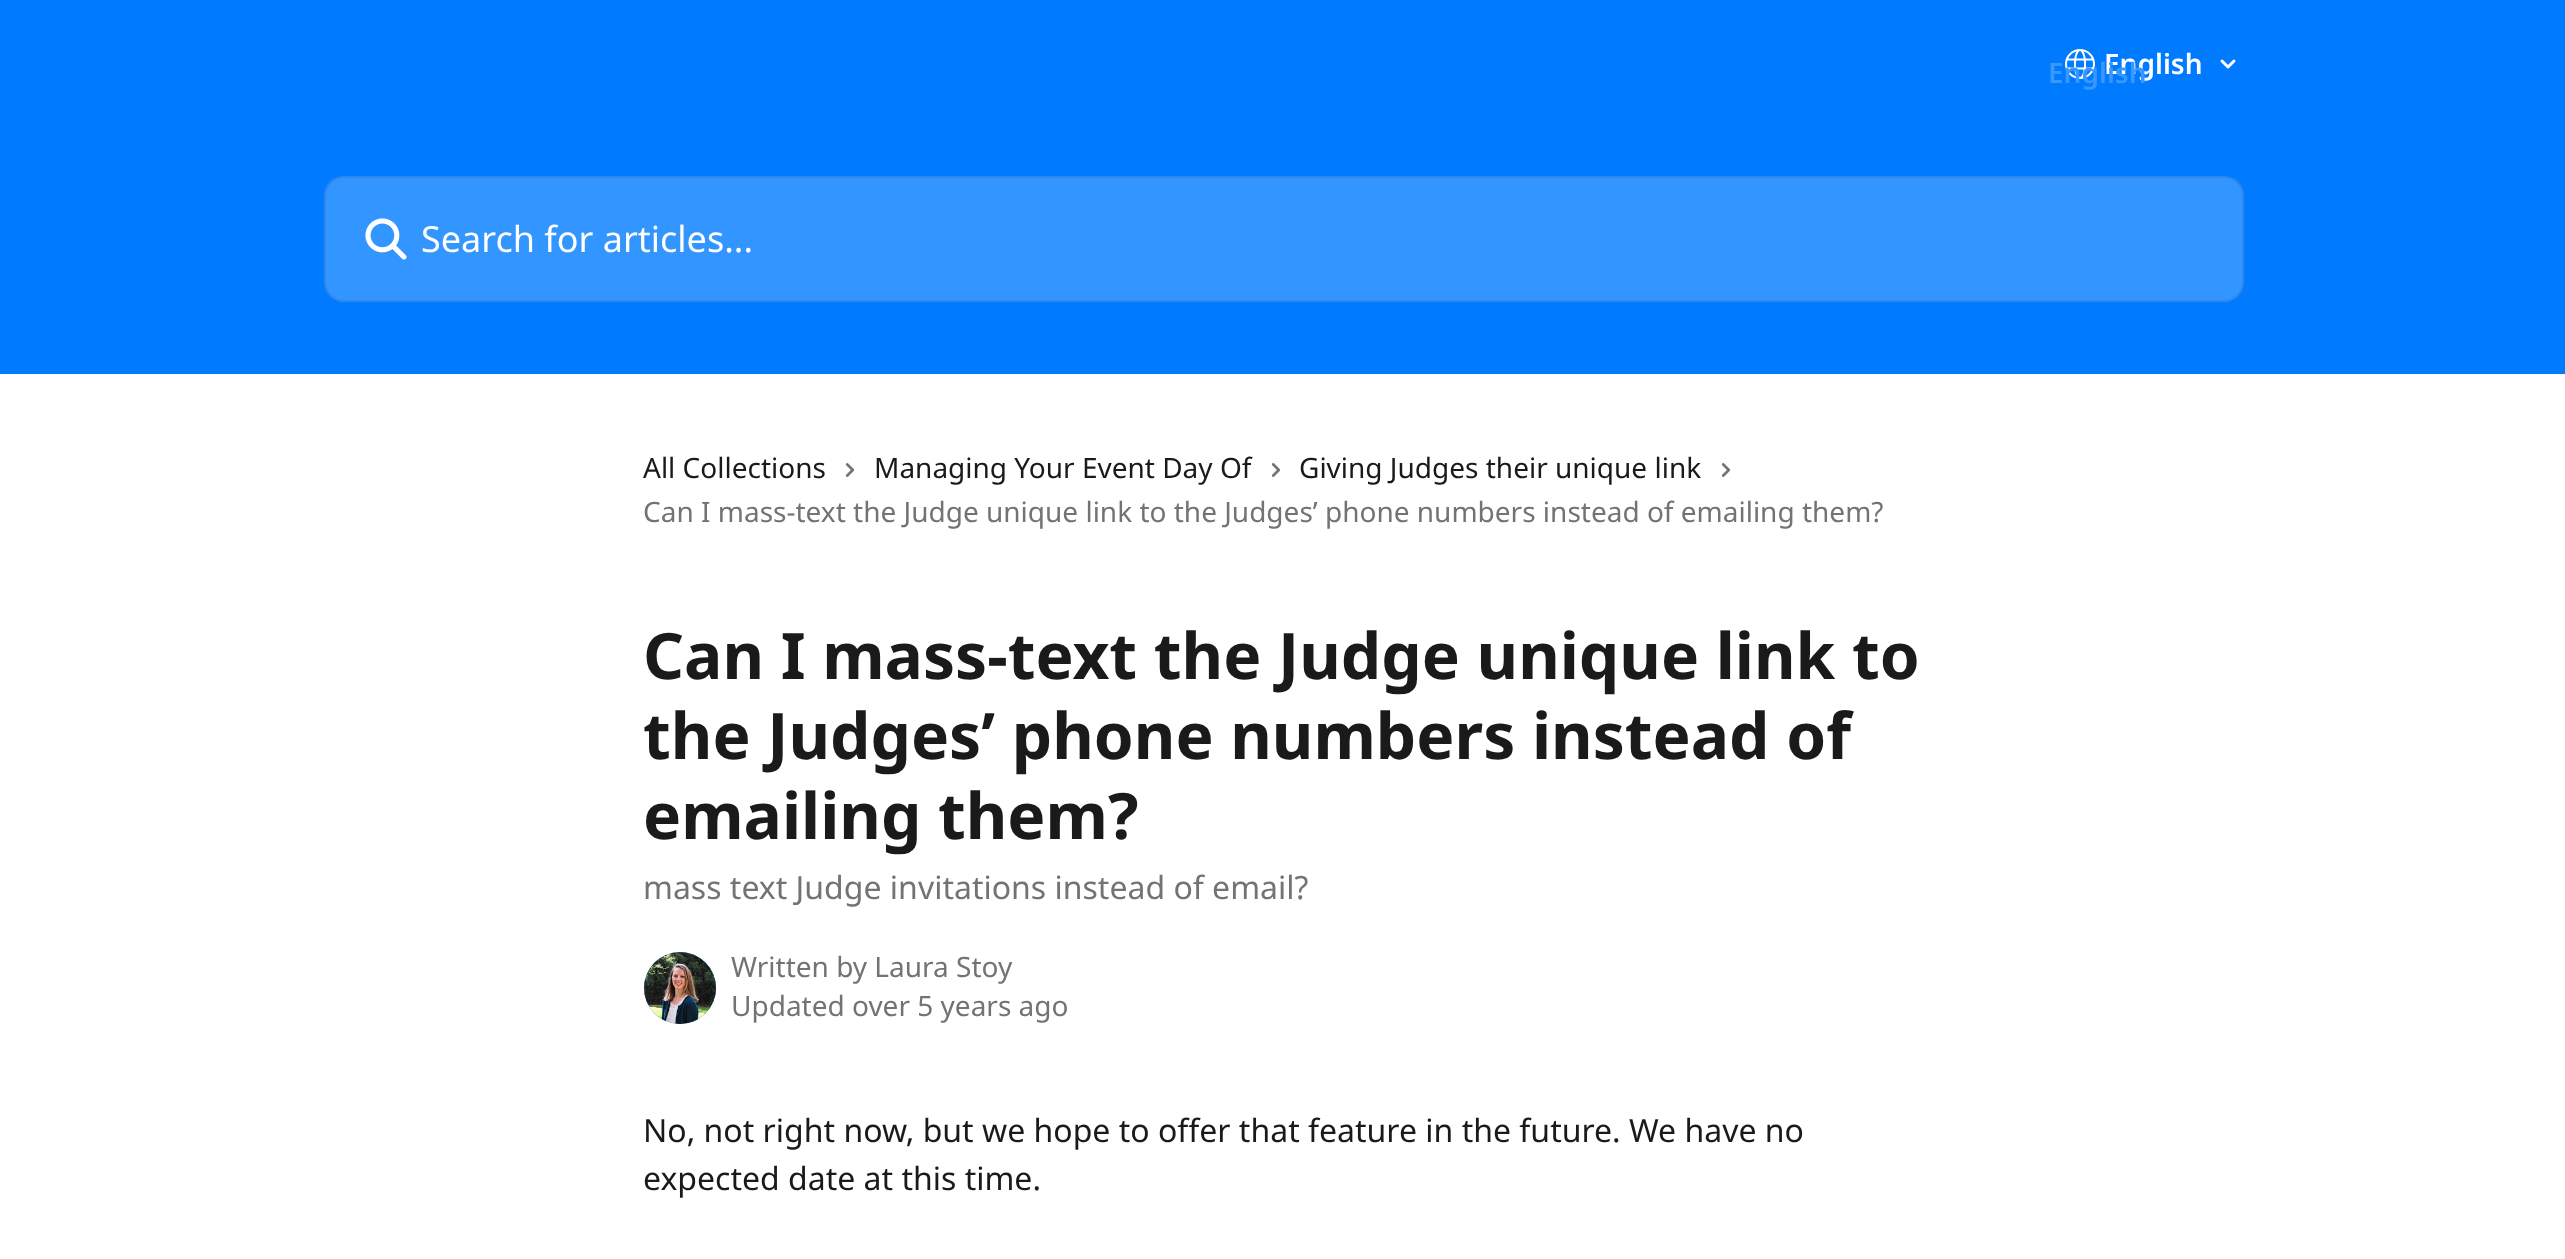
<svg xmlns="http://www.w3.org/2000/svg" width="2565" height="1259">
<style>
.a{font:600 28px Noto Sans;fill:#fff}
.b{font:600 28px Noto Sans;fill:#3998ff}
.c{font:36px Noto Sans;fill:#fff}
.d{font:28px Noto Sans;fill:#1a1a1a}
.e{font:28px Noto Sans;fill:#737373}
.f{font:bold 64px Noto Sans;fill:#1a1a1a}
.g{font:32px Noto Sans;fill:#737373}
.h{font:32px Noto Sans;fill:#1a1a1a}
</style>
<rect width="100%" height="100%" fill="#fff"/>
<path fill="#007bff" d="M0 0h2565v374H0z"/>
<image href="1.png" x="2065" y="49" width="30" height="30"/>
<path fill="none" stroke="#fff" stroke-width="3" stroke-linecap="round" stroke-linejoin="round" d="M2222 61l6 6l6-6"/>
<rect fill="#ffffff33" x="324" y="176" width="1920" height="126" rx="20"/>
<rect fill="none" stroke="#00000014" stroke-width="2" x="325" y="177" width="1918" height="124" rx="19"/>
<image href="2.png" x="365" y="218" width="42" height="42"/>
<image href="3.png" x="845" y="463" width="10" height="14"/>
<image href="3.png" x="1271" y="463" width="10" height="14"/>
<image href="3.png" x="1721" y="463" width="10" height="14"/>
<circle fill="#007bff" cx="680" cy="988" r="36"/>
<image href="4.png" x="644" y="952" width="72" height="72"/>
<text class="a" x="2104" y="74">English</text>
<text class="b" x="2048" y="83">English</text>
<text class="c" x="421" y="252">Search for articles...</text>
<text class="d" x="643" y="478">All Collections</text>
<text class="d" x="874" y="478">Managing Your Event Day Of</text>
<text class="d" x="1299" y="478">Giving Judges their unique link</text>
<text class="e" x="643" y="522">Can I mass-text the Judge unique link to the Judges’ phone numbers instead of emailing them?</text>
<text class="f" x="643" y="679">Can I mass-text the Judge unique link to</text>
<text class="f" x="643" y="759">the Judges’ phone numbers instead of</text>
<text class="f" x="643" y="839">emailing them?</text>
<text class="g" x="643" y="899">mass text Judge invitations instead of email?</text>
<text class="e" x="731" y="977">Written by Laura Stoy</text>
<text class="e" x="731" y="1016">Updated over 5 years ago</text>
<text class="h" x="643" y="1142">No, not right now, but we hope to offer that feature in the future. We have no</text>
<text class="h" x="643" y="1190">expected date at this time.</text>
</svg>
